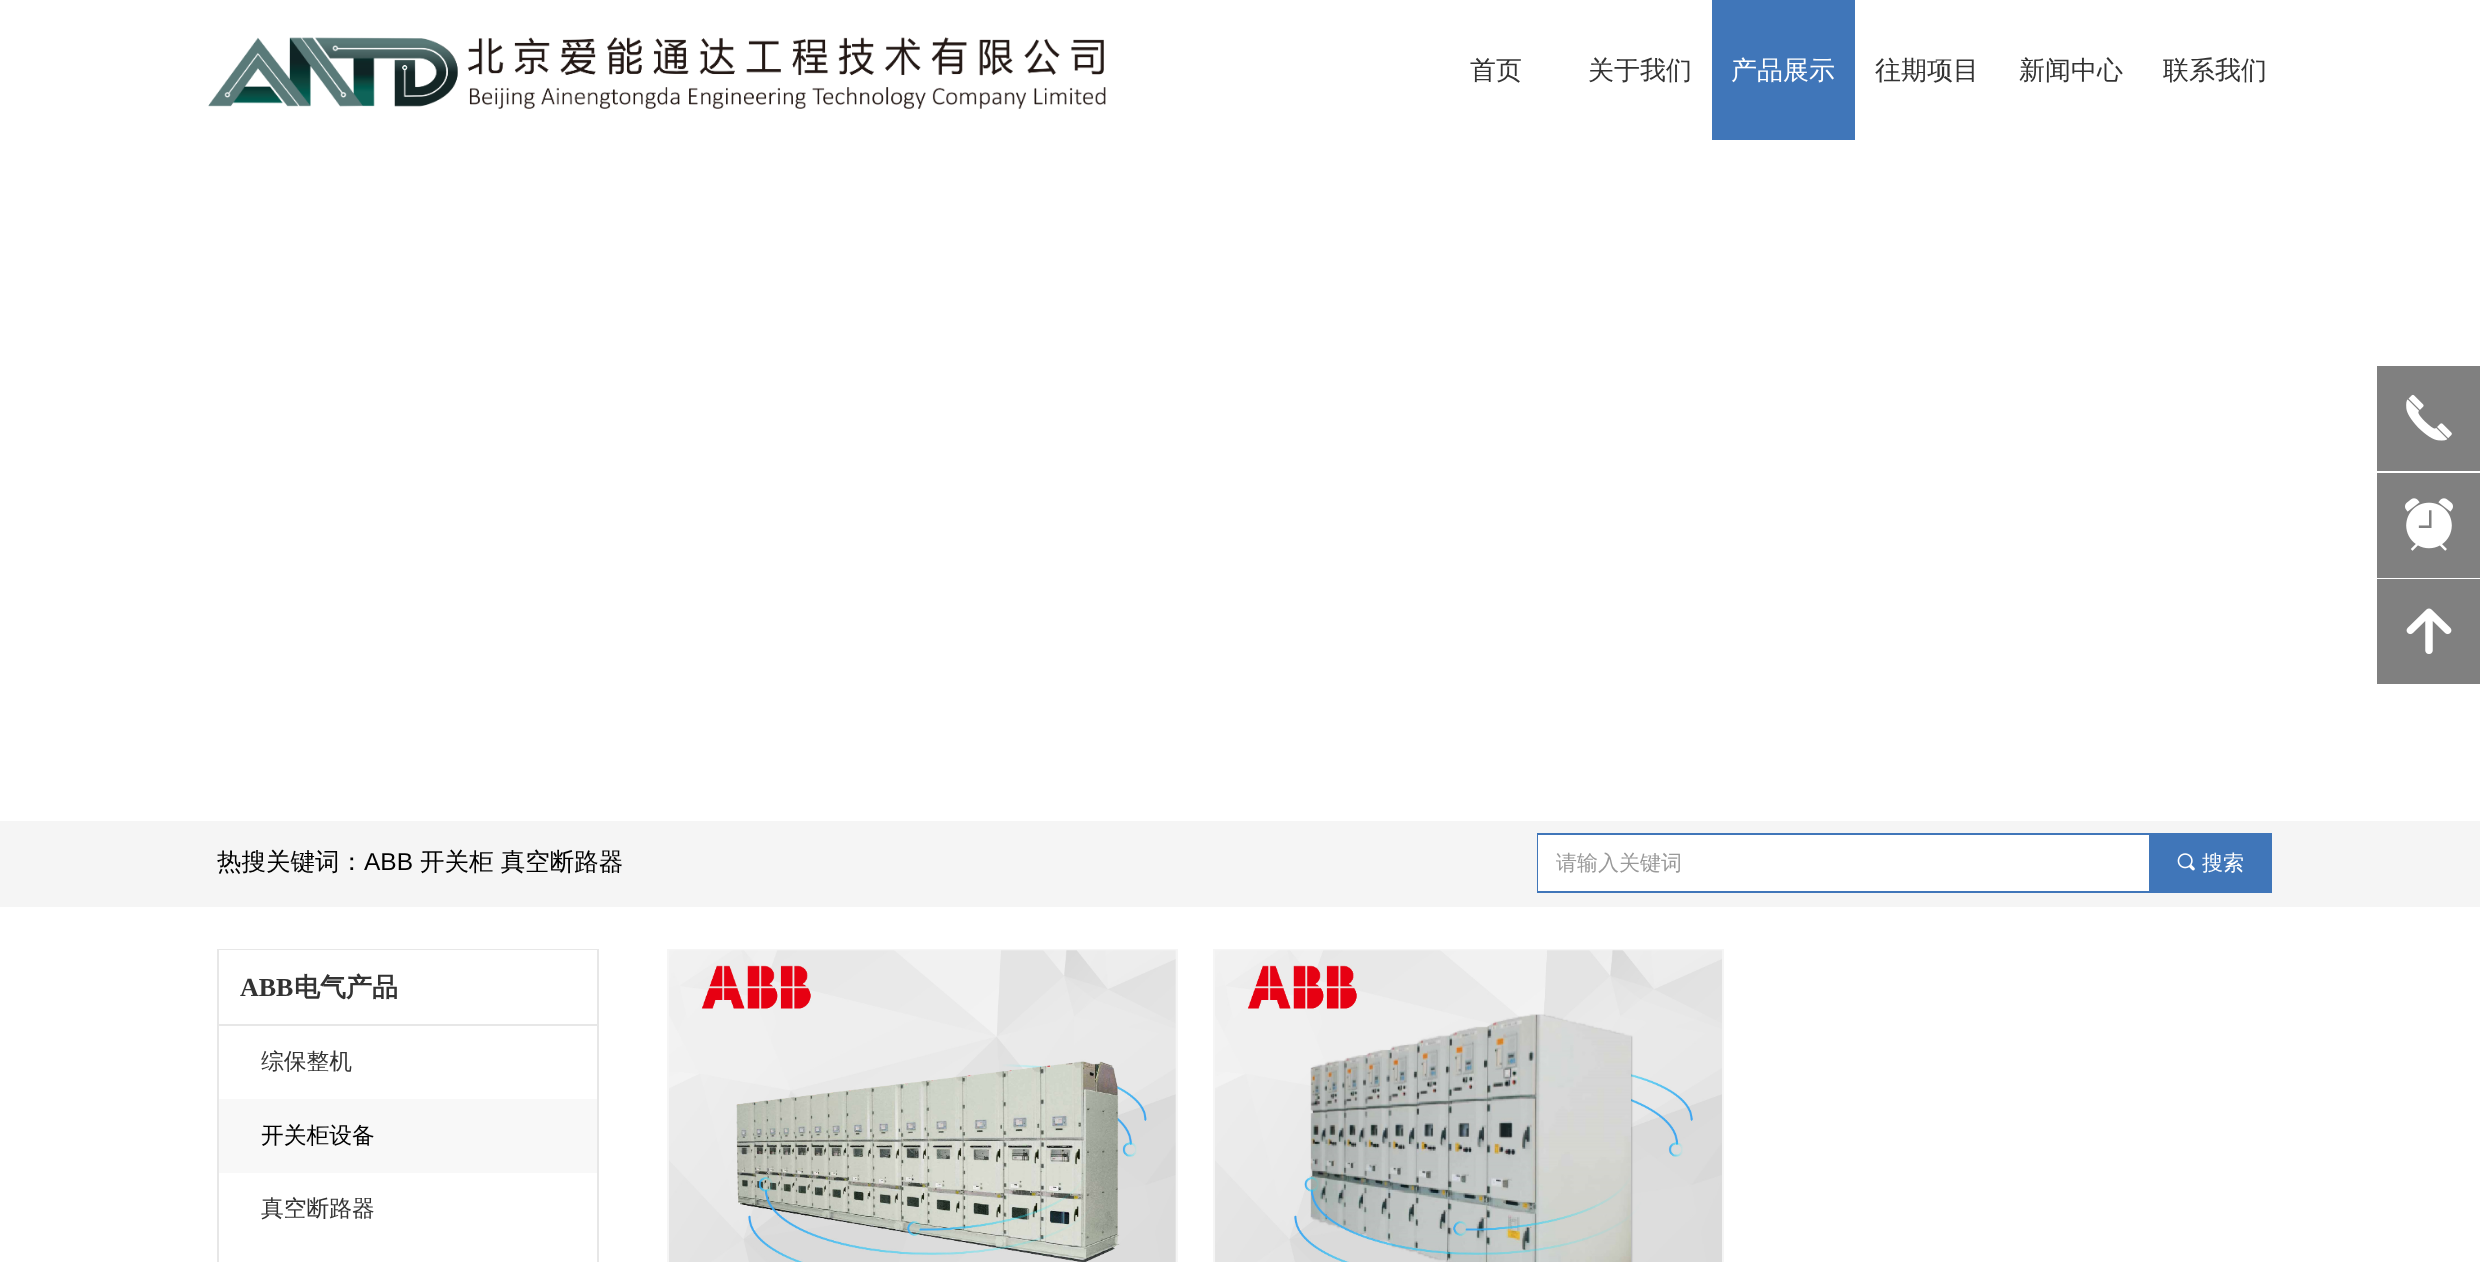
<svg xmlns="http://www.w3.org/2000/svg" width="2480" height="1262">
<style>
.a{font:500 26px WenQuanYi Zen Hei;fill:#333}
.b{font:500 26px WenQuanYi Zen Hei;fill:#fff}
.c{font:500 24.5px WenQuanYi Zen Hei;fill:#000}
.d{font:24.5px Liberation Sans;fill:#000}
.e{font:500 21px WenQuanYi Zen Hei;fill:#999}
.f{font:500 21px WenQuanYi Zen Hei;fill:#fff}
.g{font:bold 26px Liberation Serif;fill:#333}
.h{font:bold 26px WenQuanYi Zen Hei;fill:#333}
.i{font:500 22.75px WenQuanYi Zen Hei;fill:#333}
.j{font:500 22.75px WenQuanYi Zen Hei;fill:#000}
</style>
<rect width="100%" height="100%" fill="#fff"/>
<image href="1.png" x="208" y="37" width="898" height="72"/>
<path fill="#4076b9" d="M1712 0h143v140H1712z"/>
<path fill="#f5f5f5" d="M0 821h2480v86H0z"/>
<path fill="none" stroke="#4076b9" stroke-width="2" d="M1538 834h733v58H1538z"/>
<path fill="#fff" d="M1538 835h611v56H1538z"/>
<path fill="#4076b9" d="M2149 835h121v56H2149z"/>
<image href="2.png" x="2177" y="853" width="18" height="18"/>
<path fill="none" stroke="#e7e7e7" stroke-width="2" d="M218 950h380v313H218z"/>
<path fill="#fff" d="M219 950h378v1H219z"/>
<path fill="#e7e7e7" d="M219 1024h378v2H219z"/>
<path fill="#f8f8f8" d="M219 1099h378v74H219z"/>
<path fill="none" stroke="#f5f5f5" stroke-width="2" d="M668 950h509v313H668z"/>
<image href="3.png" x="669" y="950" width="507" height="312"/>
<path fill="none" stroke="#f5f5f5" stroke-width="2" d="M1214 950h509v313H1214z"/>
<image href="4.png" x="1215" y="950" width="507" height="312"/>
<path fill="#808080" d="M2377 366h103v105H2377z"/>
<image href="5.png" x="2406" y="394" width="46" height="47"/>
<path fill="#808080" d="M2377 473h103v105H2377z"/>
<image href="6.png" x="2405" y="498" width="48" height="53"/>
<path fill="#808080" d="M2377 579h103v105H2377z"/>
<image href="7.png" x="2406" y="608" width="46" height="46"/>
<text class="a" x="1470" y="79">首页</text>
<text class="a" x="1588" y="79">关于我们</text>
<text class="b" x="1731" y="79">产品展示</text>
<text class="a" x="1875" y="79">往期项目</text>
<text class="a" x="2019" y="79">新闻中心</text>
<text class="a" x="2163" y="79">联系我们</text>
<text class="c" x="217" y="870">热搜关键词：</text>
<text class="d" x="364" y="870">ABB</text>
<text class="c" x="420" y="870">开关柜 真空断路器</text>
<text class="e" x="1556" y="870">请输入关键词</text>
<text class="f" x="2202" y="870">搜索</text>
<text class="g" x="240" y="996">ABB</text>
<text class="h" x="294" y="996">电气产品</text>
<text class="i" x="261" y="1069">综保整机</text>
<text class="j" x="261" y="1143">开关柜设备</text>
<text class="i" x="261" y="1216">真空断路器</text>
</svg>
